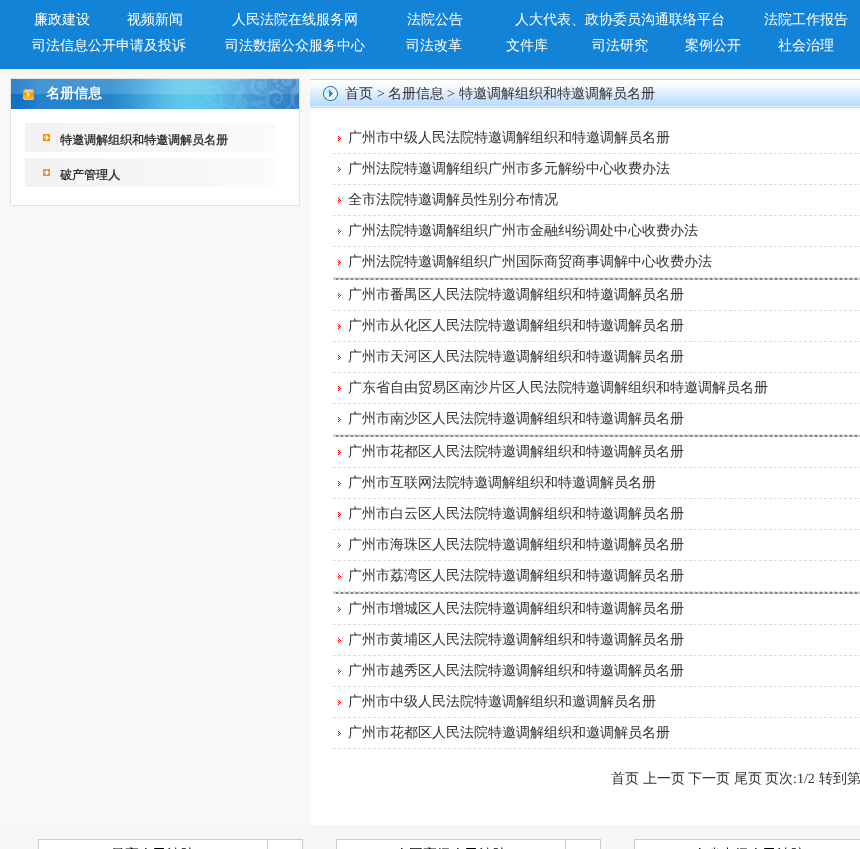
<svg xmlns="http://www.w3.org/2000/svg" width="860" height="849">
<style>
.a{font:500 14px WenQuanYi Zen Hei;fill:#fff}
.b{font:bold 14px WenQuanYi Zen Hei;fill:#fff}
.c{font:bold 12px WenQuanYi Zen Hei;fill:#333}
.d{font:500 14px WenQuanYi Zen Hei;fill:#333}
.e{font:14px Liberation Serif;fill:#333}
</style>
<rect width="100%" height="100%" fill="#fff"/>
<path fill="#1383d8" d="M0 0h860v69H0z"/>
<path fill="#f8f8f8" d="M0 69h310v756H0z"/>
<path fill="#fff" d="M11 109h288v96H11z"/>
<path fill="none" stroke="#e3e3e3" d="M10.5 78.5h289v127H10.5z"/>
<image href="1.png" x="11" y="79" width="288" height="30"/>
<image href="2.png" x="25" y="123" width="251" height="29"/>
<image href="2.png" x="25" y="158" width="251" height="29"/>
<image href="3.png" x="310" y="79" width="550" height="29"/>
<image href="4.png" x="338" y="136" width="3" height="5"/>
<path fill="none" stroke="#ddd" stroke-dasharray="3 2.01" d="M333 153.5h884"/>
<image href="4.png" x="338" y="167" width="3" height="5"/>
<path fill="none" stroke="#ddd" stroke-dasharray="3 2.01" d="M333 184.5h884"/>
<image href="4.png" x="338" y="198" width="3" height="5"/>
<path fill="none" stroke="#ddd" stroke-dasharray="3 2.01" d="M333 215.5h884"/>
<image href="4.png" x="338" y="229" width="3" height="5"/>
<path fill="none" stroke="#ddd" stroke-dasharray="3 2.01" d="M333 246.5h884"/>
<image href="4.png" x="338" y="260" width="3" height="5"/>
<path fill="none" stroke="#ddd" stroke-dasharray="3 2.01" d="M333 277.5h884"/>
<path fill="#808080" d="M333 278h527v2H333z"/>
<path fill="none" stroke="#ccc" stroke-dasharray="3 1.99" d="M333 278.5h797"/>
<path fill="none" stroke="#ccc" stroke-dasharray="3 1.99" d="M333 279.5h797"/>
<image href="4.png" x="338" y="293" width="3" height="5"/>
<path fill="none" stroke="#ddd" stroke-dasharray="3 2.01" d="M333 310.5h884"/>
<image href="4.png" x="338" y="324" width="3" height="5"/>
<path fill="none" stroke="#ddd" stroke-dasharray="3 2.01" d="M333 341.5h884"/>
<image href="4.png" x="338" y="355" width="3" height="5"/>
<path fill="none" stroke="#ddd" stroke-dasharray="3 2.01" d="M333 372.5h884"/>
<image href="4.png" x="338" y="386" width="3" height="5"/>
<path fill="none" stroke="#ddd" stroke-dasharray="3 2.01" d="M333 403.5h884"/>
<image href="4.png" x="338" y="417" width="3" height="5"/>
<path fill="none" stroke="#ddd" stroke-dasharray="3 2.01" d="M333 434.5h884"/>
<path fill="#808080" d="M333 435h527v2H333z"/>
<path fill="none" stroke="#ccc" stroke-dasharray="3 1.99" d="M333 435.5h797"/>
<path fill="none" stroke="#ccc" stroke-dasharray="3 1.99" d="M333 436.5h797"/>
<image href="4.png" x="338" y="450" width="3" height="5"/>
<path fill="none" stroke="#ddd" stroke-dasharray="3 2.01" d="M333 467.5h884"/>
<image href="4.png" x="338" y="481" width="3" height="5"/>
<path fill="none" stroke="#ddd" stroke-dasharray="3 2.01" d="M333 498.5h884"/>
<image href="4.png" x="338" y="512" width="3" height="5"/>
<path fill="none" stroke="#ddd" stroke-dasharray="3 2.01" d="M333 529.5h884"/>
<image href="4.png" x="338" y="543" width="3" height="5"/>
<path fill="none" stroke="#ddd" stroke-dasharray="3 2.01" d="M333 560.5h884"/>
<image href="4.png" x="338" y="574" width="3" height="5"/>
<path fill="none" stroke="#ddd" stroke-dasharray="3 2.01" d="M333 591.5h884"/>
<path fill="#808080" d="M333 592h527v2H333z"/>
<path fill="none" stroke="#ccc" stroke-dasharray="3 1.99" d="M333 592.5h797"/>
<path fill="none" stroke="#ccc" stroke-dasharray="3 1.99" d="M333 593.5h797"/>
<image href="4.png" x="338" y="607" width="3" height="5"/>
<path fill="none" stroke="#ddd" stroke-dasharray="3 2.01" d="M333 624.5h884"/>
<image href="4.png" x="338" y="638" width="3" height="5"/>
<path fill="none" stroke="#ddd" stroke-dasharray="3 2.01" d="M333 655.5h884"/>
<image href="4.png" x="338" y="669" width="3" height="5"/>
<path fill="none" stroke="#ddd" stroke-dasharray="3 2.01" d="M333 686.5h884"/>
<image href="4.png" x="338" y="700" width="3" height="5"/>
<path fill="none" stroke="#ddd" stroke-dasharray="3 2.01" d="M333 717.5h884"/>
<image href="4.png" x="338" y="731" width="3" height="5"/>
<path fill="none" stroke="#ddd" stroke-dasharray="3 2.01" d="M333 748.5h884"/>
<image href="5.png" x="0" y="825" width="860" height="24"/>
<text class="a" x="34" y="24">廉政建设</text>
<text class="a" x="127" y="24">视频新闻</text>
<text class="a" x="232" y="24">人民法院在线服务网</text>
<text class="a" x="407" y="24">法院公告</text>
<text class="a" x="515" y="24">人大代表、政协委员沟通联络平台</text>
<text class="a" x="764" y="24">法院工作报告</text>
<text class="a" x="32" y="50">司法信息公开申请及投诉</text>
<text class="a" x="225" y="50">司法数据公众服务中心</text>
<text class="a" x="406" y="50">司法改革</text>
<text class="a" x="506" y="50">文件库</text>
<text class="a" x="592" y="50">司法研究</text>
<text class="a" x="685" y="50">案例公开</text>
<text class="a" x="778" y="50">社会治理</text>
<text class="b" x="46" y="98">名册信息</text>
<text class="c" x="60" y="144">特邀调解组织和特邀调解员名册</text>
<text class="c" x="60" y="179">破产管理人</text>
<text class="d" x="345" y="98">首页</text>
<text class="e" x="377" y="98">&gt;</text>
<text class="d" x="388" y="98">名册信息</text>
<text class="e" x="447" y="98">&gt;</text>
<text class="d" x="459" y="98">特邀调解组织和特邀调解员名册</text>
<text class="d" x="348" y="142">广州市中级人民法院特邀调解组织和特邀调解员名册</text>
<text class="d" x="348" y="173">广州法院特邀调解组织广州市多元解纷中心收费办法</text>
<text class="d" x="348" y="204">全市法院特邀调解员性别分布情况</text>
<text class="d" x="348" y="235">广州法院特邀调解组织广州市金融纠纷调处中心收费办法</text>
<text class="d" x="348" y="266">广州法院特邀调解组织广州国际商贸商事调解中心收费办法</text>
<text class="d" x="348" y="299">广州市番禺区人民法院特邀调解组织和特邀调解员名册</text>
<text class="d" x="348" y="330">广州市从化区人民法院特邀调解组织和特邀调解员名册</text>
<text class="d" x="348" y="361">广州市天河区人民法院特邀调解组织和特邀调解员名册</text>
<text class="d" x="348" y="392">广东省自由贸易区南沙片区人民法院特邀调解组织和特邀调解员名册</text>
<text class="d" x="348" y="423">广州市南沙区人民法院特邀调解组织和特邀调解员名册</text>
<text class="d" x="348" y="456">广州市花都区人民法院特邀调解组织和特邀调解员名册</text>
<text class="d" x="348" y="487">广州市互联网法院特邀调解组织和特邀调解员名册</text>
<text class="d" x="348" y="518">广州市白云区人民法院特邀调解组织和特邀调解员名册</text>
<text class="d" x="348" y="549">广州市海珠区人民法院特邀调解组织和特邀调解员名册</text>
<text class="d" x="348" y="580">广州市荔湾区人民法院特邀调解组织和特邀调解员名册</text>
<text class="d" x="348" y="613">广州市增城区人民法院特邀调解组织和特邀调解员名册</text>
<text class="d" x="348" y="644">广州市黄埔区人民法院特邀调解组织和特邀调解员名册</text>
<text class="d" x="348" y="675">广州市越秀区人民法院特邀调解组织和特邀调解员名册</text>
<text class="d" x="348" y="706">广州市中级人民法院特邀调解组织和邀调解员名册</text>
<text class="d" x="348" y="737">广州市花都区人民法院特邀调解组织和邀调解员名册</text>
<text class="d" x="611" y="783">首页</text>
<text class="d" x="643" y="783">上一页</text>
<text class="d" x="688" y="783">下一页</text>
<text class="d" x="734" y="783">尾页</text>
<text class="d" x="765" y="783">页次</text>
<text class="e" x="793" y="783">:1/2</text>
<text class="d" x="819" y="783">转到第</text>
</svg>
